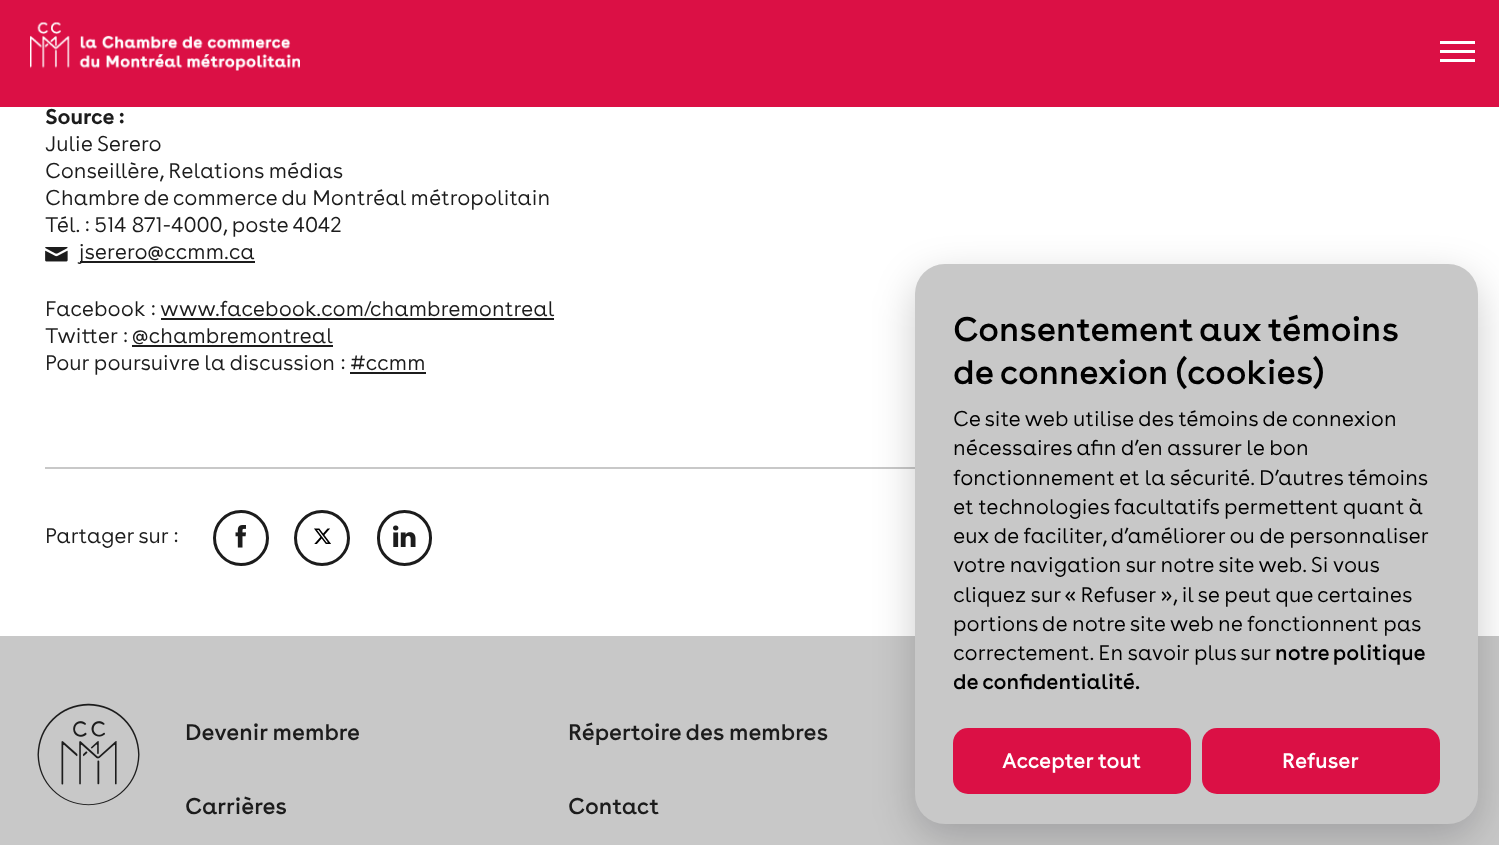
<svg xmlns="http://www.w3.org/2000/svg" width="1499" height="845">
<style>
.a{font:bold 22.5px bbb;fill:#1c1c1c}
.b{font:300 22.5px bbb;fill:#1c1c1c}
.c{font:36px bbb;fill:#000}
.d{font:300 22.5px bbb;fill:#000}
.e{font:22.5px bbb;fill:#000}
.f{font:22.5px bbb;fill:#fff}
.g{font:24px bbb;fill:#1c1c1c}
</style>
<rect width="100%" height="100%" fill="#fff"/>
<path fill="#db1045" d="M0 0h1499v107H0z"/>
<image href="1.png" x="30" y="22" width="270" height="49"/>
<path fill="#fff" d="M1440 50h35v3H1440z"/>
<path fill="#fff" d="M1440 41h35v3H1440z"/>
<path fill="#fff" d="M1440 59h35v3H1440z"/>
<image href="2.png" x="45" y="247" width="23" height="15"/>
<path fill="#1c1c1c" d="M80 261h175v2H80z"/>
<path fill="#1c1c1c" d="M161 318h393v2H161z"/>
<path fill="#1c1c1c" d="M132 345h201v2H132z"/>
<path fill="#1c1c1c" d="M350 372h76v2H350z"/>
<path fill="#c8c8c8" d="M45 467h870v2H45z"/>
<circle fill="none" stroke="#1c1c1c" stroke-width="3" cx="241" cy="538" r="26.5"/>
<image href="3.png" x="235" y="525" width="11" height="23"/>
<circle fill="none" stroke="#1c1c1c" stroke-width="3" cx="322" cy="538" r="26.5"/>
<image href="4.png" x="314" y="528" width="17" height="16"/>
<rect fill="none" stroke="#1c1c1c" stroke-width="3" x="378.5" y="511.5" width="52" height="53" rx="26"/>
<image href="5.png" x="393" y="525" width="23" height="22"/>
<path fill="#c8c8c8" d="M0 636h1499v209H0z"/>
<rect fill="#02020333" filter="blur(21px)" x="915" y="278" width="563" height="559" rx="30"/>
<rect fill="#c8c8c8" x="915" y="264" width="563" height="560" rx="30"/>
<rect fill="#db1045" x="953" y="728" width="238" height="66" rx="15"/>
<rect fill="#db1045" x="1202" y="728" width="238" height="66" rx="15"/>
<image href="6.png" x="37" y="703" width="103" height="103"/>
<text class="a" x="45" y="124">Source :</text>
<text class="b" x="45" y="151">Julie Serero</text>
<text class="b" x="45" y="178">Conseillère, Relations médias</text>
<text class="b" x="45" y="205">Chambre de commerce du Montréal métropolitain</text>
<text class="b" x="45" y="232">Tél. : 514 871-4000, poste 4042</text>
<text class="b" x="79" y="259">jserero@ccmm.ca</text>
<text class="b" x="45" y="316">Facebook :</text>
<text class="b" x="160" y="316">www.facebook.com/chambremontreal</text>
<text class="b" x="45" y="343">Twitter :</text>
<text class="b" x="132" y="343">@chambremontreal</text>
<text class="b" x="45" y="370">Pour poursuivre la discussion : #ccmm</text>
<text class="b" x="45" y="543">Partager sur :</text>
<text class="c" x="953" y="341" word-spacing="-1">Consentement aux témoins</text>
<text class="c" x="953" y="384">de connexion (cookies)</text>
<text class="d" x="953" y="426">Ce site web utilise des témoins de connexion</text>
<text class="d" x="953" y="455">nécessaires afin d’en assurer le bon</text>
<text class="d" x="953" y="485">fonctionnement et la sécurité. D’autres témoins</text>
<text class="d" x="953" y="514">et technologies facultatifs permettent quant à</text>
<text class="d" x="953" y="543">eux de faciliter, d’améliorer ou de personnaliser</text>
<text class="d" x="953" y="572">votre navigation sur notre site web. Si vous</text>
<text class="d" x="953" y="602">cliquez sur « Refuser », il se peut que certaines</text>
<text class="d" x="953" y="631">portions de notre site web ne fonctionnent pas</text>
<text class="d" x="953" y="660">correctement. En savoir plus sur</text>
<text class="e" x="1275" y="660" word-spacing="-1">notre politique</text>
<text class="e" x="953" y="689">de confidentialité.</text>
<text class="f" x="1002" y="768">Accepter tout</text>
<text class="f" x="1282" y="768">Refuser</text>
<text class="g" x="185" y="740">Devenir membre</text>
<text class="g" x="568" y="740">Répertoire des membres</text>
<text class="g" x="185" y="814">Carrières</text>
<text class="g" x="568" y="814">Contact</text>
</svg>
